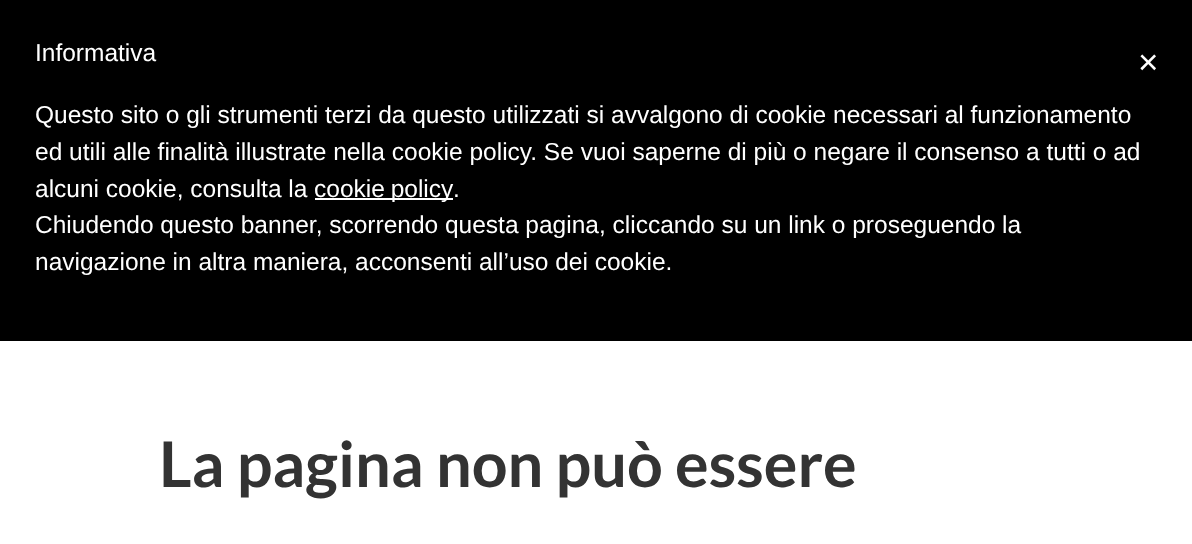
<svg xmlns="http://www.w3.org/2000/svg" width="1192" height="544">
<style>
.a{font:24.5px Liberation Sans;fill:#fff}
.b{font:35px Liberation Sans;fill:#fff}
.c{font:bold 63px Lato;fill:#333}
</style>
<rect width="100%" height="100%" fill="#fff"/>
<path fill="#000" d="M0 0h1192v341H0z"/>
<path fill="#fff" d="M315 198h138v2H315z"/>
<text class="a" x="35" y="61">Informativa</text>
<text class="a" x="35" y="123">Questo sito o gli strumenti terzi da questo utilizzati si avvalgono di cookie necessari al funzionamento</text>
<text class="a" x="35" y="160">ed utili alle finalità illustrate nella cookie policy. Se vuoi saperne di più o negare il consenso a tutti o ad</text>
<text class="a" x="35" y="197">alcuni cookie, consulta la</text>
<text class="a" x="314" y="197" word-spacing="-1">cookie policy</text>
<text class="a" x="453" y="197">.</text>
<text class="a" x="35" y="233">Chiudendo questo banner, scorrendo questa pagina, cliccando su un link o proseguendo la</text>
<text class="a" x="35" y="270">navigazione in altra maniera, acconsenti all’uso dei cookie.</text>
<text class="b" x="1138" y="74">×</text>
<text class="c" x="159" y="487">La pagina non può essere</text>
</svg>
